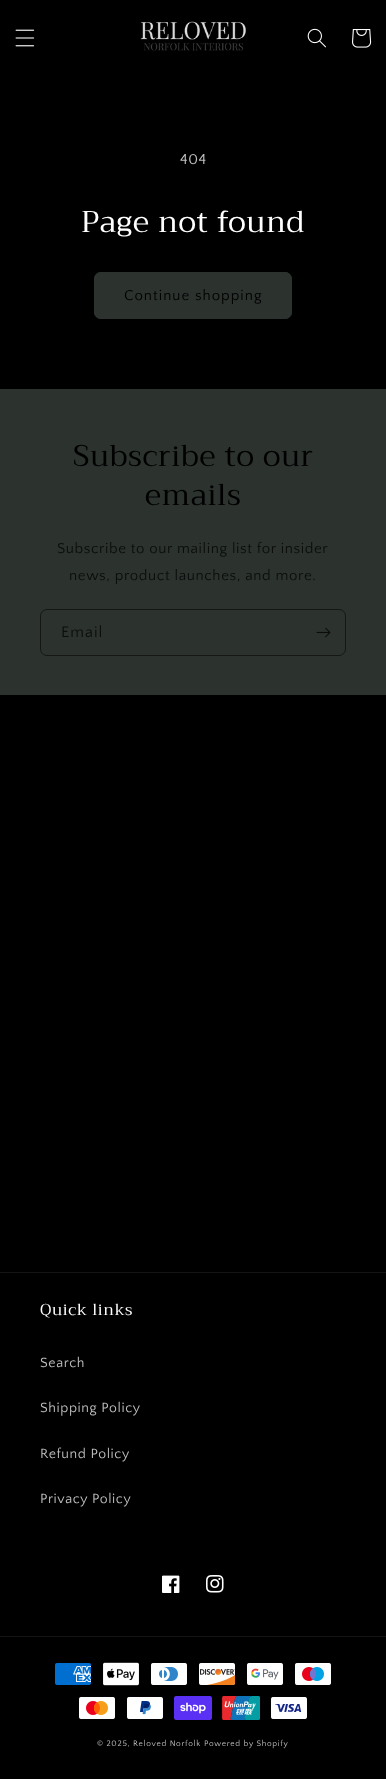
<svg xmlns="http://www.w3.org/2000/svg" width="386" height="1779">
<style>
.a{font:15px Quattrocento Sans;letter-spacing:0.6px;fill:#bfbfbf}
.b{font:30px Trirong;letter-spacing:0.6px;fill:#fff}
.c{font:15px Quattrocento Sans;letter-spacing:1px;fill:#000}
.d{font:30px Trirong;letter-spacing:0.6px;fill:#000}
.e{font:15px Quattrocento Sans;letter-spacing:0.6px;fill:#0b0d0c}
.f{font:16px Quattrocento Sans;letter-spacing:1px;fill:#0b0d0c}
.g{font:16px Trirong;letter-spacing:0.6px;fill:#fff}
.h{font:14px Quattrocento Sans;letter-spacing:0.6px;fill:#bfbfbf}
.i{font:8.3px Quattrocento Sans;letter-spacing:0.7px;fill:#bfbfbf}
</style>
<rect width="100%" height="100%" fill="#000"/>
<image href="1.png" x="15" y="29" width="20" height="18"/>
<image href="2.png" x="140" y="21" width="107" height="30"/>
<image href="3.png" x="307" y="28" width="19" height="20"/>
<image href="4.png" x="352" y="29" width="20" height="19"/>
<rect fill="#2c332f" x="94" y="272" width="198" height="47" rx="7"/>
<rect fill="none" stroke="#2c332f" x="94.5" y="272.5" width="197" height="46" rx="6.5"/>
<path fill="#2c332f" d="M0 389h386v306H0z"/>
<rect fill="none" stroke="#141715" x="40.5" y="609.5" width="305" height="46" rx="6.5"/>
<image href="5.png" x="316" y="627" width="15" height="11"/>
<path fill="#141414" d="M0 1272h386v1H0z"/>
<image href="6.png" x="162" y="1575" width="18" height="18"/>
<image href="7.png" x="206" y="1575" width="18" height="18"/>
<path fill="#141414" d="M0 1636h386v1H0z"/>
<image href="8.png" x="55" y="1663" width="36" height="22"/>
<image href="9.png" x="103" y="1662" width="36" height="24"/>
<image href="10.png" x="151" y="1663" width="36" height="22"/>
<image href="11.png" x="199" y="1663" width="37" height="22"/>
<image href="12.png" x="247" y="1663" width="36" height="22"/>
<image href="13.png" x="295" y="1663" width="36" height="22"/>
<image href="14.png" x="79" y="1697" width="36" height="22"/>
<image href="15.png" x="127" y="1697" width="36" height="22"/>
<image href="16.png" x="174" y="1696" width="38" height="24"/>
<image href="17.png" x="222" y="1696" width="38" height="24"/>
<image href="18.png" x="271" y="1697" width="36" height="22"/>
<text class="a" x="180" y="164">404</text>
<text class="b" x="81" y="232">Page not found</text>
<text class="c" x="124" y="300">Continue shopping</text>
<text class="d" x="73" y="466">Subscribe to our</text>
<text class="d" x="145" y="505">emails</text>
<text class="e" x="57" y="553">Subscribe to our mailing list for insider</text>
<text class="e" x="69" y="580">news, product launches, and more.</text>
<text class="f" x="61" y="637">Email</text>
<text class="g" x="40" y="1315">Quick links</text>
<text class="h" x="40" y="1367">Search</text>
<text class="h" x="40" y="1412">Shipping Policy</text>
<text class="h" x="40" y="1458">Refund Policy</text>
<text class="h" x="40" y="1503">Privacy Policy</text>
<text class="i" x="97" y="1746">© 2025, Reloved Norfolk</text>
<text class="i" x="204" y="1746">Powered by Shopify</text>
</svg>
